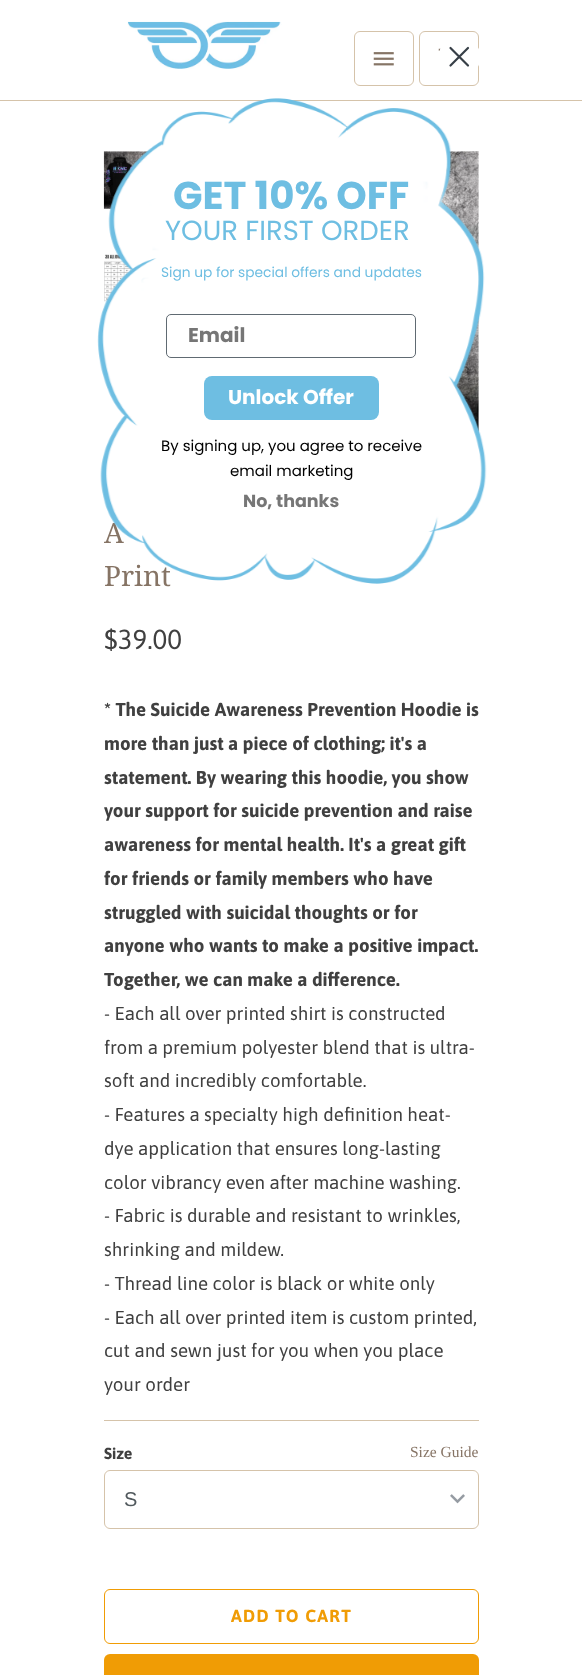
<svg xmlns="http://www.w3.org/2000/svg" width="582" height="1675">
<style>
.a{font:28px Noto Serif;fill:#867465}
.b{font:bold 17.5px Poppins;fill:#767676}
.c{font:15px Poppins;fill:#000}
.d{font:bold 20px Poppins;fill:#fff}
.e{font:bold 20px Poppins;fill:#767676}
.f{font:13.75px Poppins;fill:#6ebee2}
.g{font:27.5px Poppins;fill:#6ebee2}
.h{font:bold 38.75px Poppins;fill:#6ebee2}
.i{font:27.5px Asap;fill:#404040}
.j{font:bold 18.75px Asap;fill:#404040}
.k{font:18.75px Asap;fill:#404040}
.l{font:bold 16px Asap;fill:#404040}
.m{font:20px Liberation Sans;fill:#51595d}
.n{font:15.5px Liberation Serif;fill:#867465}
.o{font:bold 17.5px Asap;letter-spacing:1.25px;fill:#f09c05}
</style>
<rect width="100%" height="100%" fill="#fff"/>
<path fill="#d5c3aa" d="M0 100h582v1H0z"/>
<image href="1.png" x="127" y="21" width="155" height="48"/>
<rect fill="none" stroke="#d5c3aa" x="354.5" y="31.5" width="59" height="54" rx="5.5"/>
<image href="2.png" x="373" y="52" width="21" height="14"/>
<rect fill="none" stroke="#d5c3aa" x="419.5" y="31.5" width="59" height="54" rx="5.5"/>
<image href="3.png" x="438" y="48" width="3" height="3"/>
<circle fill="#fff" cx="459.5" cy="57" r="21"/>
<path fill="none" stroke="#373f47" stroke-width="2.2" stroke-linecap="round" stroke-linejoin="round" d="M450.5 48l17.5 17.5m-17.5 0l17.5-17.5z"/>
<image href="5.png" x="103" y="151" width="45" height="58"/>
<image href="6.png" x="104" y="254" width="29" height="48"/>
<image href="7.png" x="439" y="151" width="40" height="281"/>
<path fill="#d5c3aa" d="M104 1420h375v1H104z"/>
<image href="8.png" x="450" y="1494" width="15" height="10"/>
<rect fill="none" stroke="#d5c3aa" x="104.5" y="1470.5" width="374" height="58" rx="5.5"/>
<rect fill="none" stroke="#f09c05" x="104.5" y="1589.5" width="374" height="54" rx="5.5"/>
<rect fill="#f09c05" x="104" y="1654" width="375" height="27" rx="6"/>
<text class="a" x="104" y="543">A</text>
<text class="a" x="104" y="586">Print</text>
<image href="4.png" x="97" y="98" width="390" height="486"/>
<text class="b" x="243" y="507">No, thanks</text>
<text class="c" x="230" y="476">email marketing</text>
<text class="c" x="161" y="451">By signing up, you agree to receive</text>
<rect fill="#6ebee2" x="204" y="376" width="175" height="44" rx="8"/>
<text class="d" x="228" y="404">Unlock Offer</text>
<rect fill="none" stroke="#606a72" x="166.5" y="314.5" width="249" height="43" rx="4.5"/>
<text class="e" x="188" y="342">Email</text>
<text class="f" x="161" y="277">Sign up for special offers and updates</text>
<text class="g" x="165" y="240">YOUR FIRST ORDER</text>
<text class="h" x="173" y="209">GET 10% OFF</text>
<text class="i" x="104" y="649">$39.00</text>
<text class="j" x="104" y="716">* The Suicide Awareness Prevention Hoodie is</text>
<text class="j" x="104" y="750">more than just a piece of clothing; it's a</text>
<text class="j" x="104" y="784">statement. By wearing this hoodie, you show</text>
<text class="j" x="104" y="817">your support for suicide prevention and raise</text>
<text class="j" x="104" y="851">awareness for mental health. It's a great gift</text>
<text class="j" x="104" y="885">for friends or family members who have</text>
<text class="j" x="104" y="919">struggled with suicidal thoughts or for</text>
<text class="j" x="104" y="952">anyone who wants to make a positive impact.</text>
<text class="j" x="104" y="986">Together, we can make a difference.</text>
<text class="k" x="104" y="1020">- Each all over printed shirt is constructed</text>
<text class="k" x="104" y="1054">from a premium polyester blend that is ultra-</text>
<text class="k" x="104" y="1087">soft and incredibly comfortable.</text>
<text class="k" x="104" y="1121">- Features a specialty high definition heat-</text>
<text class="k" x="104" y="1155">dye application that ensures long-lasting</text>
<text class="k" x="104" y="1189">color vibrancy even after machine washing.</text>
<text class="k" x="104" y="1222">- Fabric is durable and resistant to wrinkles,</text>
<text class="k" x="104" y="1256">shrinking and mildew.</text>
<text class="k" x="104" y="1290">- Thread line color is black or white only</text>
<text class="k" x="104" y="1324">- Each all over printed item is custom printed,</text>
<text class="k" x="104" y="1357">cut and sewn just for you when you place</text>
<text class="k" x="104" y="1391">your order</text>
<text class="l" x="104" y="1459">Size</text>
<text class="m" x="124" y="1506">S</text>
<text class="n" x="410" y="1457">Size Guide</text>
<text class="o" x="231" y="1622">ADD TO CART</text>
</svg>
